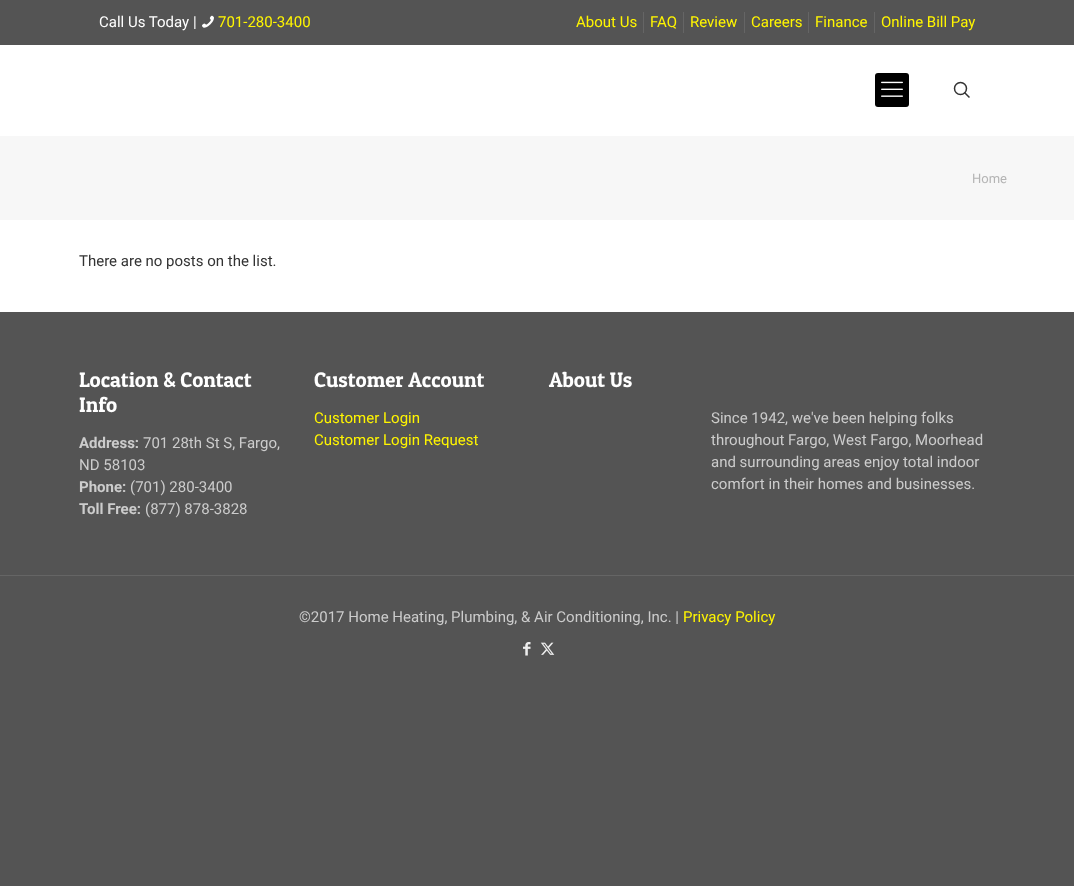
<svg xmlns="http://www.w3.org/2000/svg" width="1074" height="886">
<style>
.a{font:15px Roboto;fill:#fff}
.b{font:15px Roboto;fill:#fff500}
.c{font:13px Roboto;fill:#b4b4b4}
.d{font:15px Roboto;fill:#333}
.e{font:21px Patua One;fill:#fff}
.f{font:bold 15px Roboto;fill:#ccc}
.g{font:15px Roboto;fill:#ccc}
</style>
<rect width="100%" height="100%" fill="#545454"/>
<path fill="#fff" d="M0 220h1074v92H0z"/>
<image href="1.png" x="202" y="15" width="12" height="13"/>
<path fill="#656565" d="M643 12h1v21H643z"/>
<path fill="#656565" d="M683 12h1v21H683z"/>
<path fill="#656565" d="M744 12h1v21H744z"/>
<path fill="#656565" d="M808 12h1v21H808z"/>
<path fill="#656565" d="M874 12h1v21H874z"/>
<path fill="#fff" d="M0 45h1074v91H0z"/>
<rect fill="#000" x="875" y="73" width="34" height="34" rx="3"/>
<image href="2.png" x="881" y="81" width="22" height="16"/>
<circle fill="none" stroke="#333" stroke-width="1.5" cx="960.5" cy="88.5" r="6"/>
<path fill="none" stroke="#333" stroke-width="1.5" d="M964.5 92.5l5 5"/>
<path fill="#f7f7f7" d="M0 136h1074v84H0z"/>
<path fill="#656565" d="M0 575h1074v1H0z"/>
<image href="3.png" x="523" y="642" width="8" height="14"/>
<image href="4.png" x="540" y="642" width="15" height="13"/>
<text class="a" x="99" y="27">Call Us Today |</text>
<text class="b" x="218" y="27">701-280-3400</text>
<text class="b" x="576" y="27">About Us</text>
<text class="b" x="650" y="27">FAQ</text>
<text class="b" x="690" y="27">Review</text>
<text class="b" x="751" y="27">Careers</text>
<text class="b" x="815" y="27">Finance</text>
<text class="b" x="881" y="27">Online Bill Pay</text>
<text class="c" x="972" y="183">Home</text>
<text class="d" x="79" y="266">There are no posts on the list.</text>
<text class="e" x="79" y="387">Location &amp; Contact</text>
<text class="e" x="79" y="412">Info</text>
<text class="f" x="79" y="448">Address:</text>
<text class="g" x="143" y="448">701 28th St S, Fargo,</text>
<text class="g" x="79" y="470">ND 58103</text>
<text class="f" x="79" y="492">Phone:</text>
<text class="g" x="130" y="492">(701) 280-3400</text>
<text class="f" x="79" y="514">Toll Free:</text>
<text class="g" x="145" y="514">(877) 878-3828</text>
<text class="e" x="314" y="387">Customer Account</text>
<text class="b" x="314" y="423">Customer Login</text>
<text class="b" x="314" y="445">Customer Login Request</text>
<text class="e" x="549" y="387">About Us</text>
<text class="g" x="711" y="423">Since 1942, we've been helping folks</text>
<text class="g" x="711" y="445">throughout Fargo, West Fargo, Moorhead</text>
<text class="g" x="711" y="467">and surrounding areas enjoy total indoor</text>
<text class="g" x="711" y="489">comfort in their homes and businesses.</text>
<text class="g" x="299" y="622">©2017 Home Heating, Plumbing, &amp; Air Conditioning, Inc. |</text>
<text class="b" x="683" y="622">Privacy Policy</text>
</svg>
